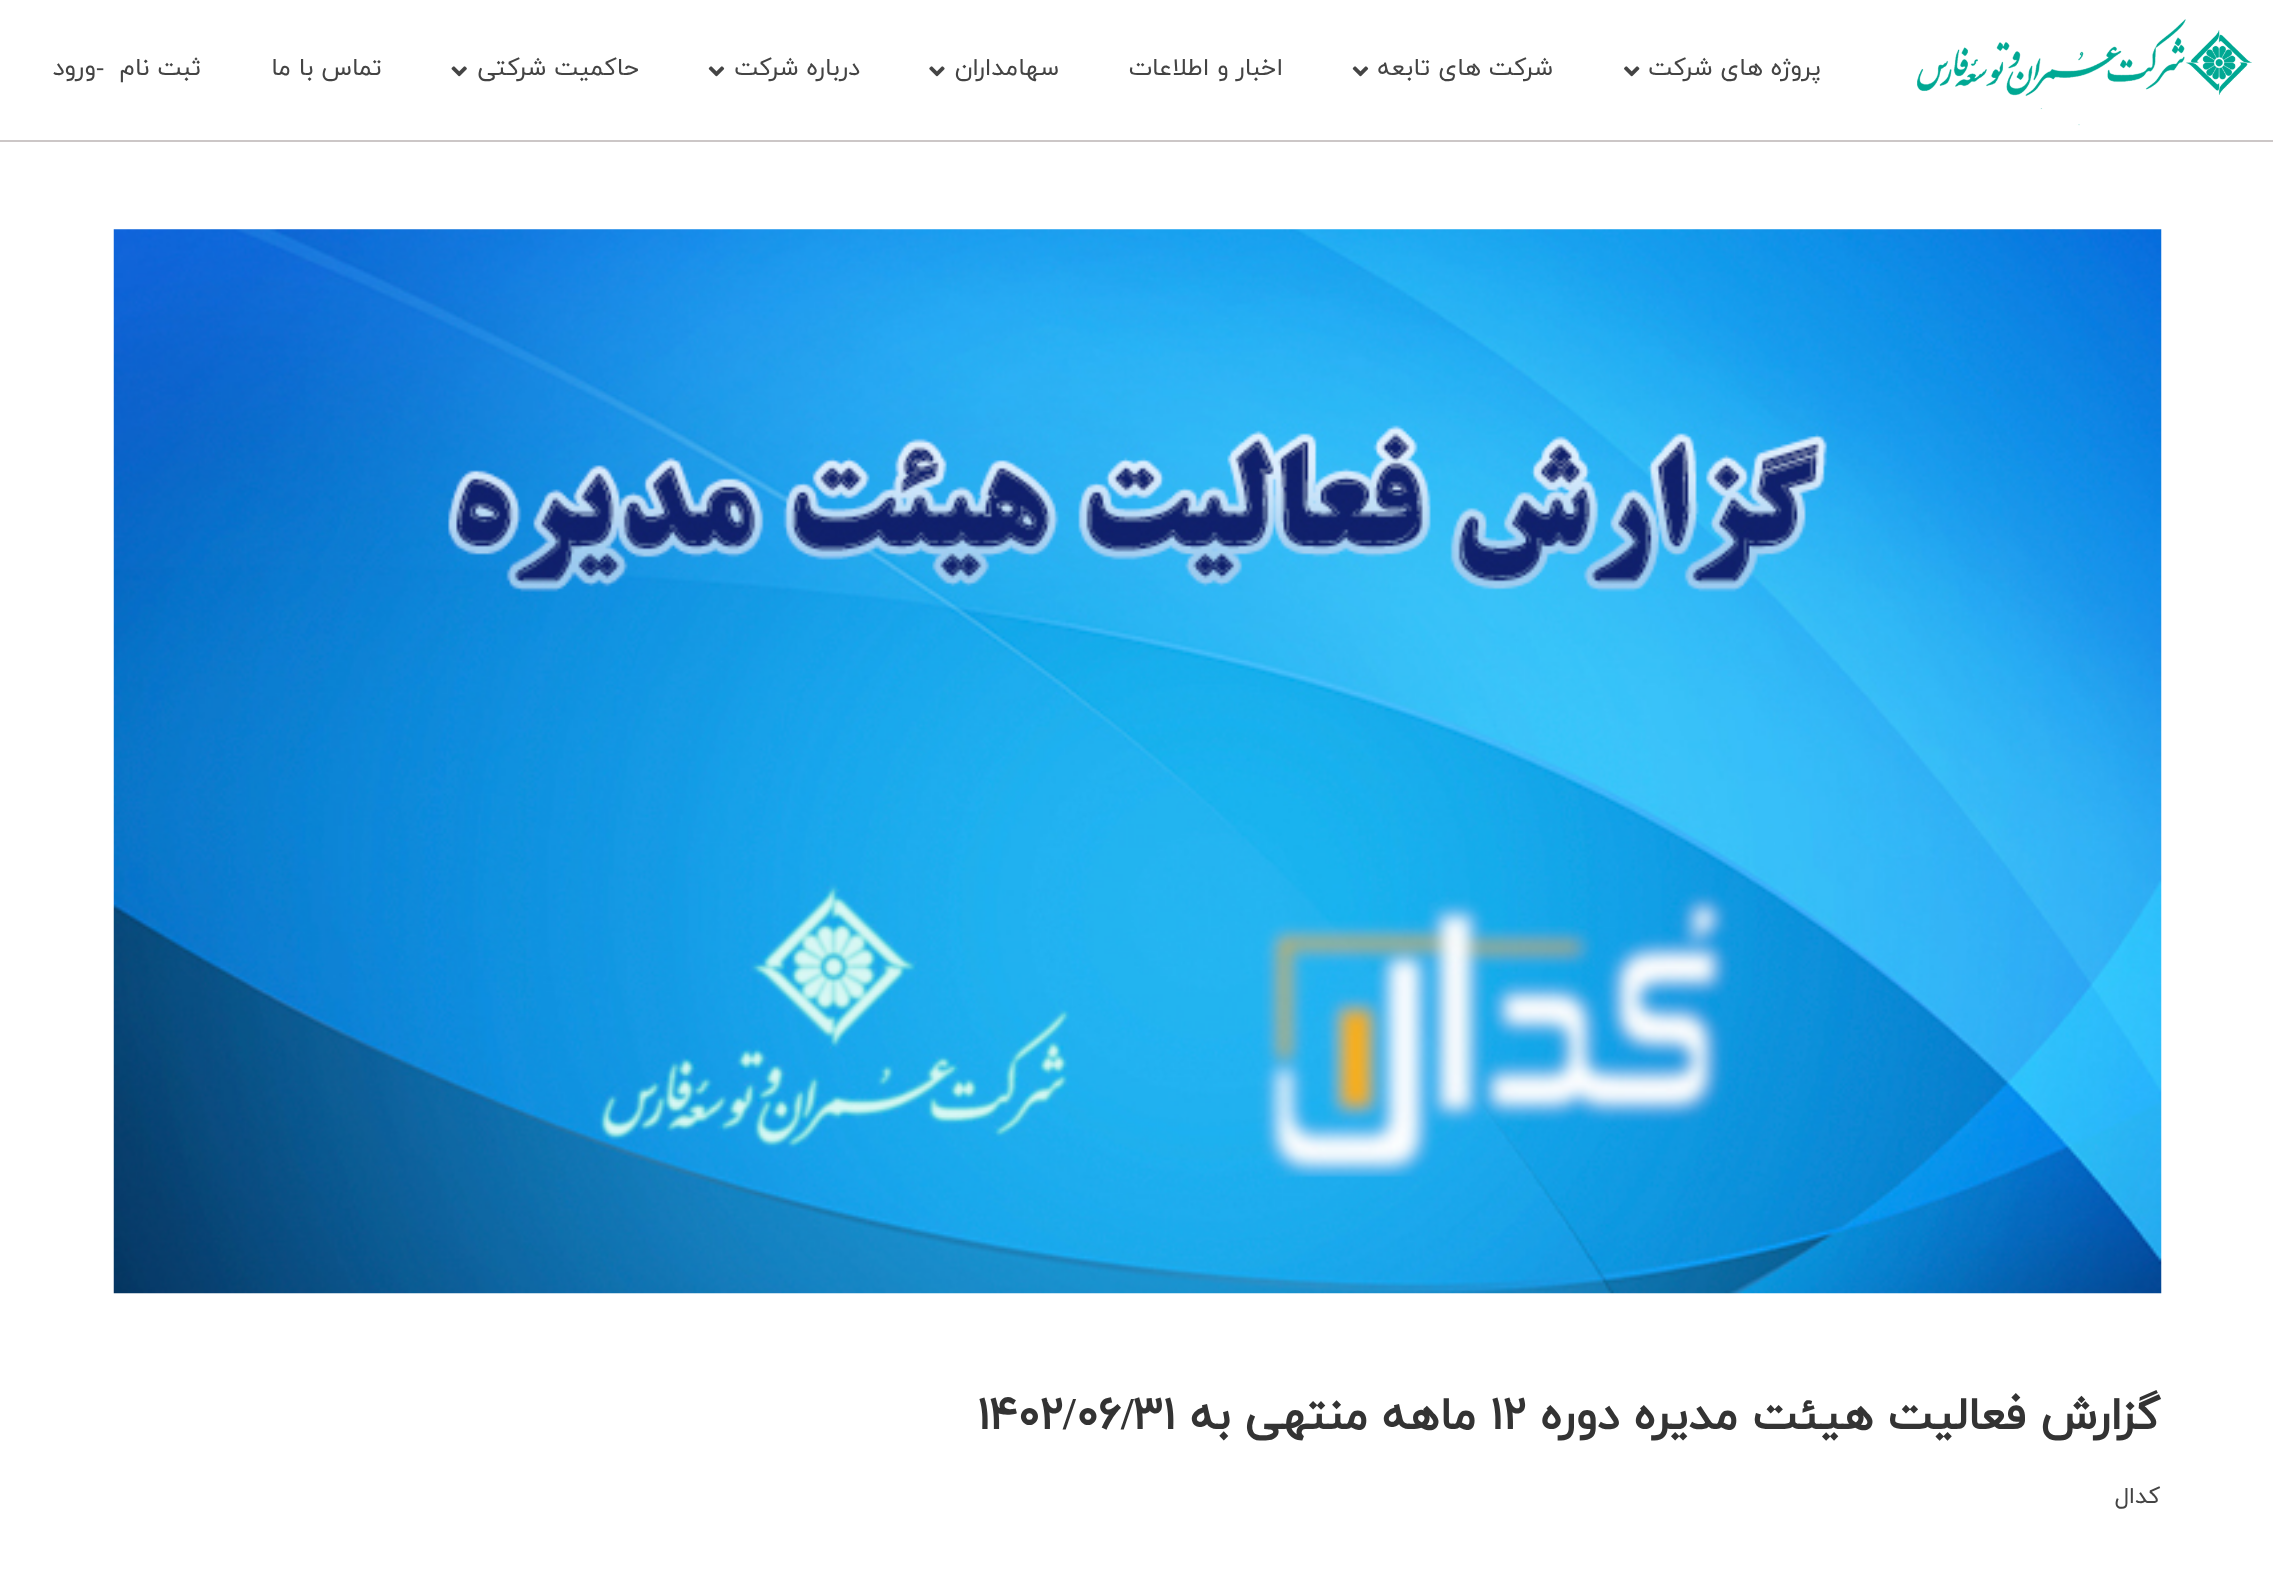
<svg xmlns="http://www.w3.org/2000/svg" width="2273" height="1584">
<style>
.a{font:24.5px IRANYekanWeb;direction:rtl;fill:#444}
.b{font:24.5px Liberation Serif;fill:#444}
.c{font:bold 45.5px IRANYekanWeb;direction:rtl;fill:#333}
.d{font:bold 45.5px IRANYekanWeb;fill:#333}
.e{font:bold 45.5px Liberation Serif;fill:#333}
.f{font:23px IRANYekanWeb;direction:rtl;fill:#444}
</style>
<rect width="100%" height="100%" fill="#fff"/>
<path fill="#ccc7c7" d="M0 140h2273v2H0z"/>
<image href="1.png" x="1917" y="19" width="335" height="107"/>
<image href="2.png" x="1624" y="66" width="16" height="11"/>
<image href="3.png" x="1352" y="66" width="17" height="11"/>
<image href="4.png" x="929" y="66" width="16" height="11"/>
<image href="3.png" x="708" y="66" width="17" height="11"/>
<image href="5.png" x="451" y="66" width="16" height="11"/>
<image href="6.png" x="113" y="229" width="2049" height="1065"/>
<text class="a" x="1821" y="75">پروژه های شرکت</text>
<text class="a" x="1553" y="75">شرکت های تابعه</text>
<text class="a" x="1283" y="75">اخبار و اطلاعات</text>
<text class="a" x="1059" y="75">سهامداران</text>
<text class="a" x="860" y="75">درباره شرکت</text>
<text class="a" x="639" y="75">حاکمیت شرکتی</text>
<text class="a" x="382" y="75">تماس با ما</text>
<text class="a" x="201" y="75">ثبت نام</text>
<text class="b" x="96" y="75">-</text>
<text class="a" x="96" y="75">ورود</text>
<text class="c" x="2160" y="1429">گزارش فعالیت هیئت مدیره دوره</text>
<text class="d" x="1490" y="1429">۱۲</text>
<text class="c" x="1476" y="1429">ماهه منتهی به</text>
<text class="d" x="1133" y="1429">۳۱</text>
<text class="e" x="1121" y="1429">/</text>
<text class="d" x="1076" y="1429">۰۶</text>
<text class="e" x="1063" y="1429">/</text>
<text class="d" x="977" y="1429">۱۴۰۲</text>
<text class="f" x="2160" y="1503">کدال</text>
</svg>
